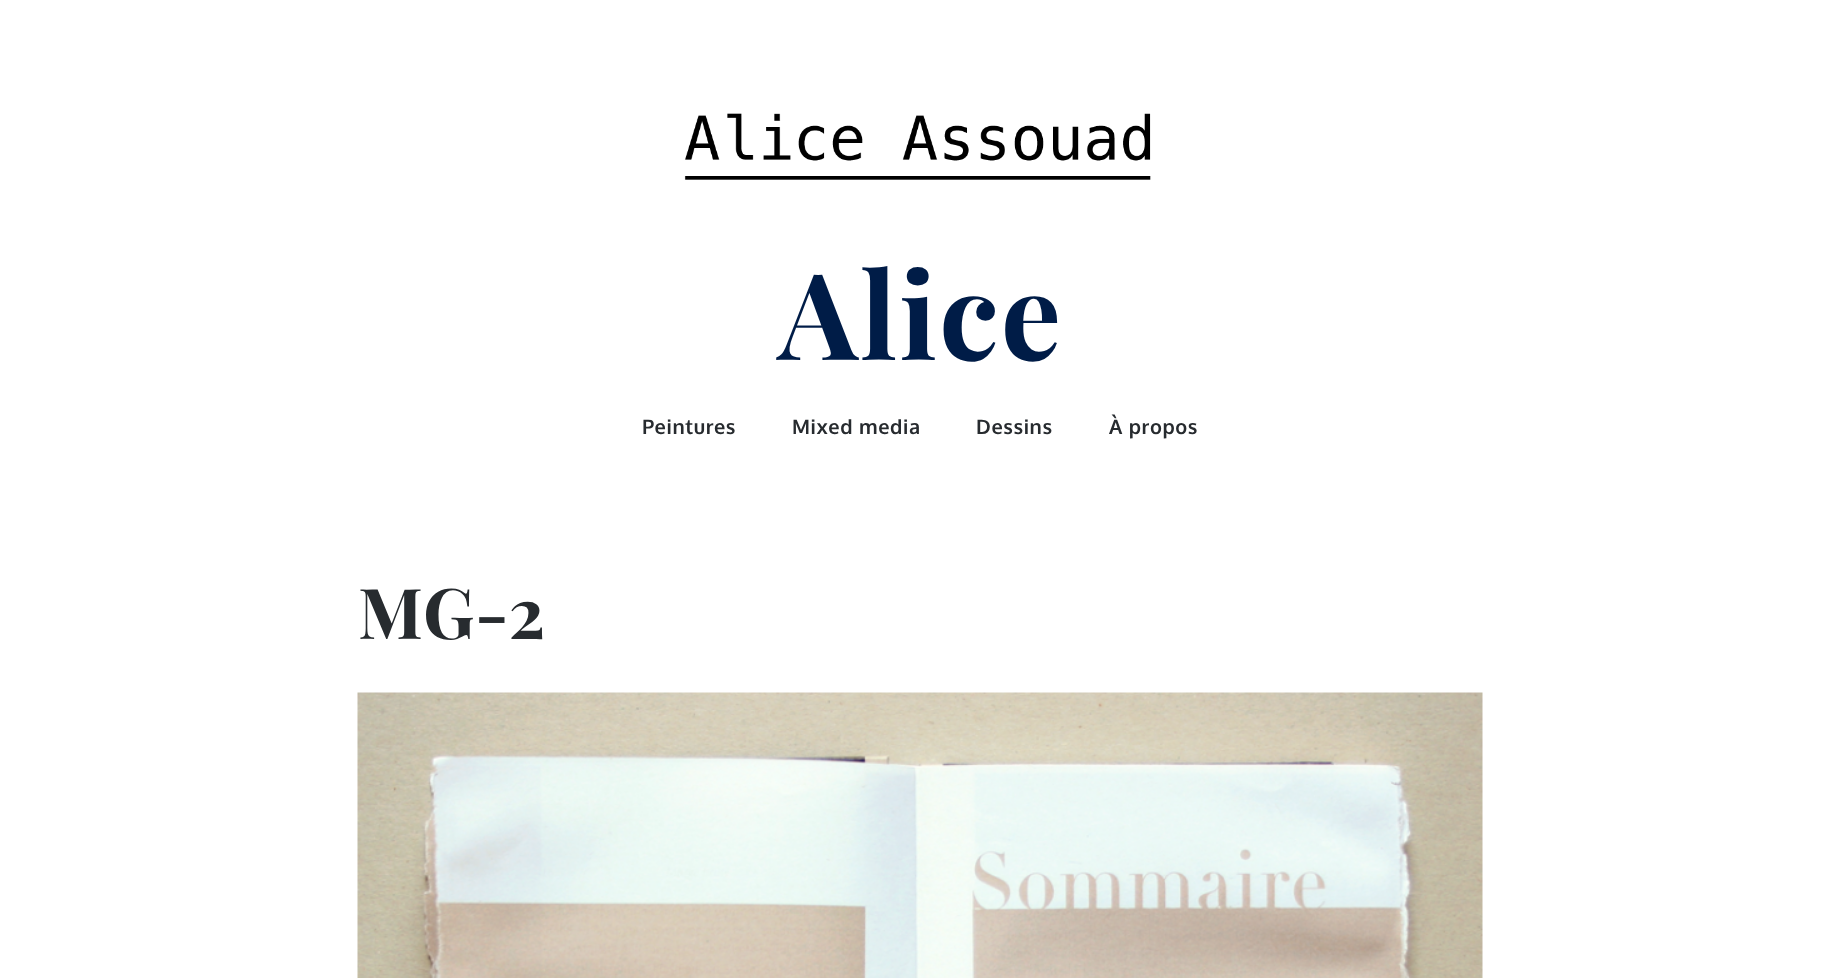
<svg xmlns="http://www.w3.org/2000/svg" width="1839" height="978">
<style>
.a{font:bold 120px Playfair Display;letter-spacing:2px;fill:#001c47}
.b{font:bold 20px Oxygen;letter-spacing:0.6px;fill:#272b2f}
.c{font:bold 70px Playfair Display;letter-spacing:0.6px;fill:#272b2f}
</style>
<rect width="100%" height="100%" fill="#fff"/>
<image href="1.png" x="684" y="113" width="467" height="67"/>
<image href="2.png" x="357" y="692" width="1126" height="286"/>
<text class="a" x="778" y="360">Alice</text>
<text class="b" x="642" y="434">Peintures</text>
<text class="b" x="792" y="434">Mixed media</text>
<text class="b" x="976" y="434">Dessins</text>
<text class="b" x="1109" y="434">À propos</text>
<text class="c" x="358" y="639">MG-2</text>
</svg>
